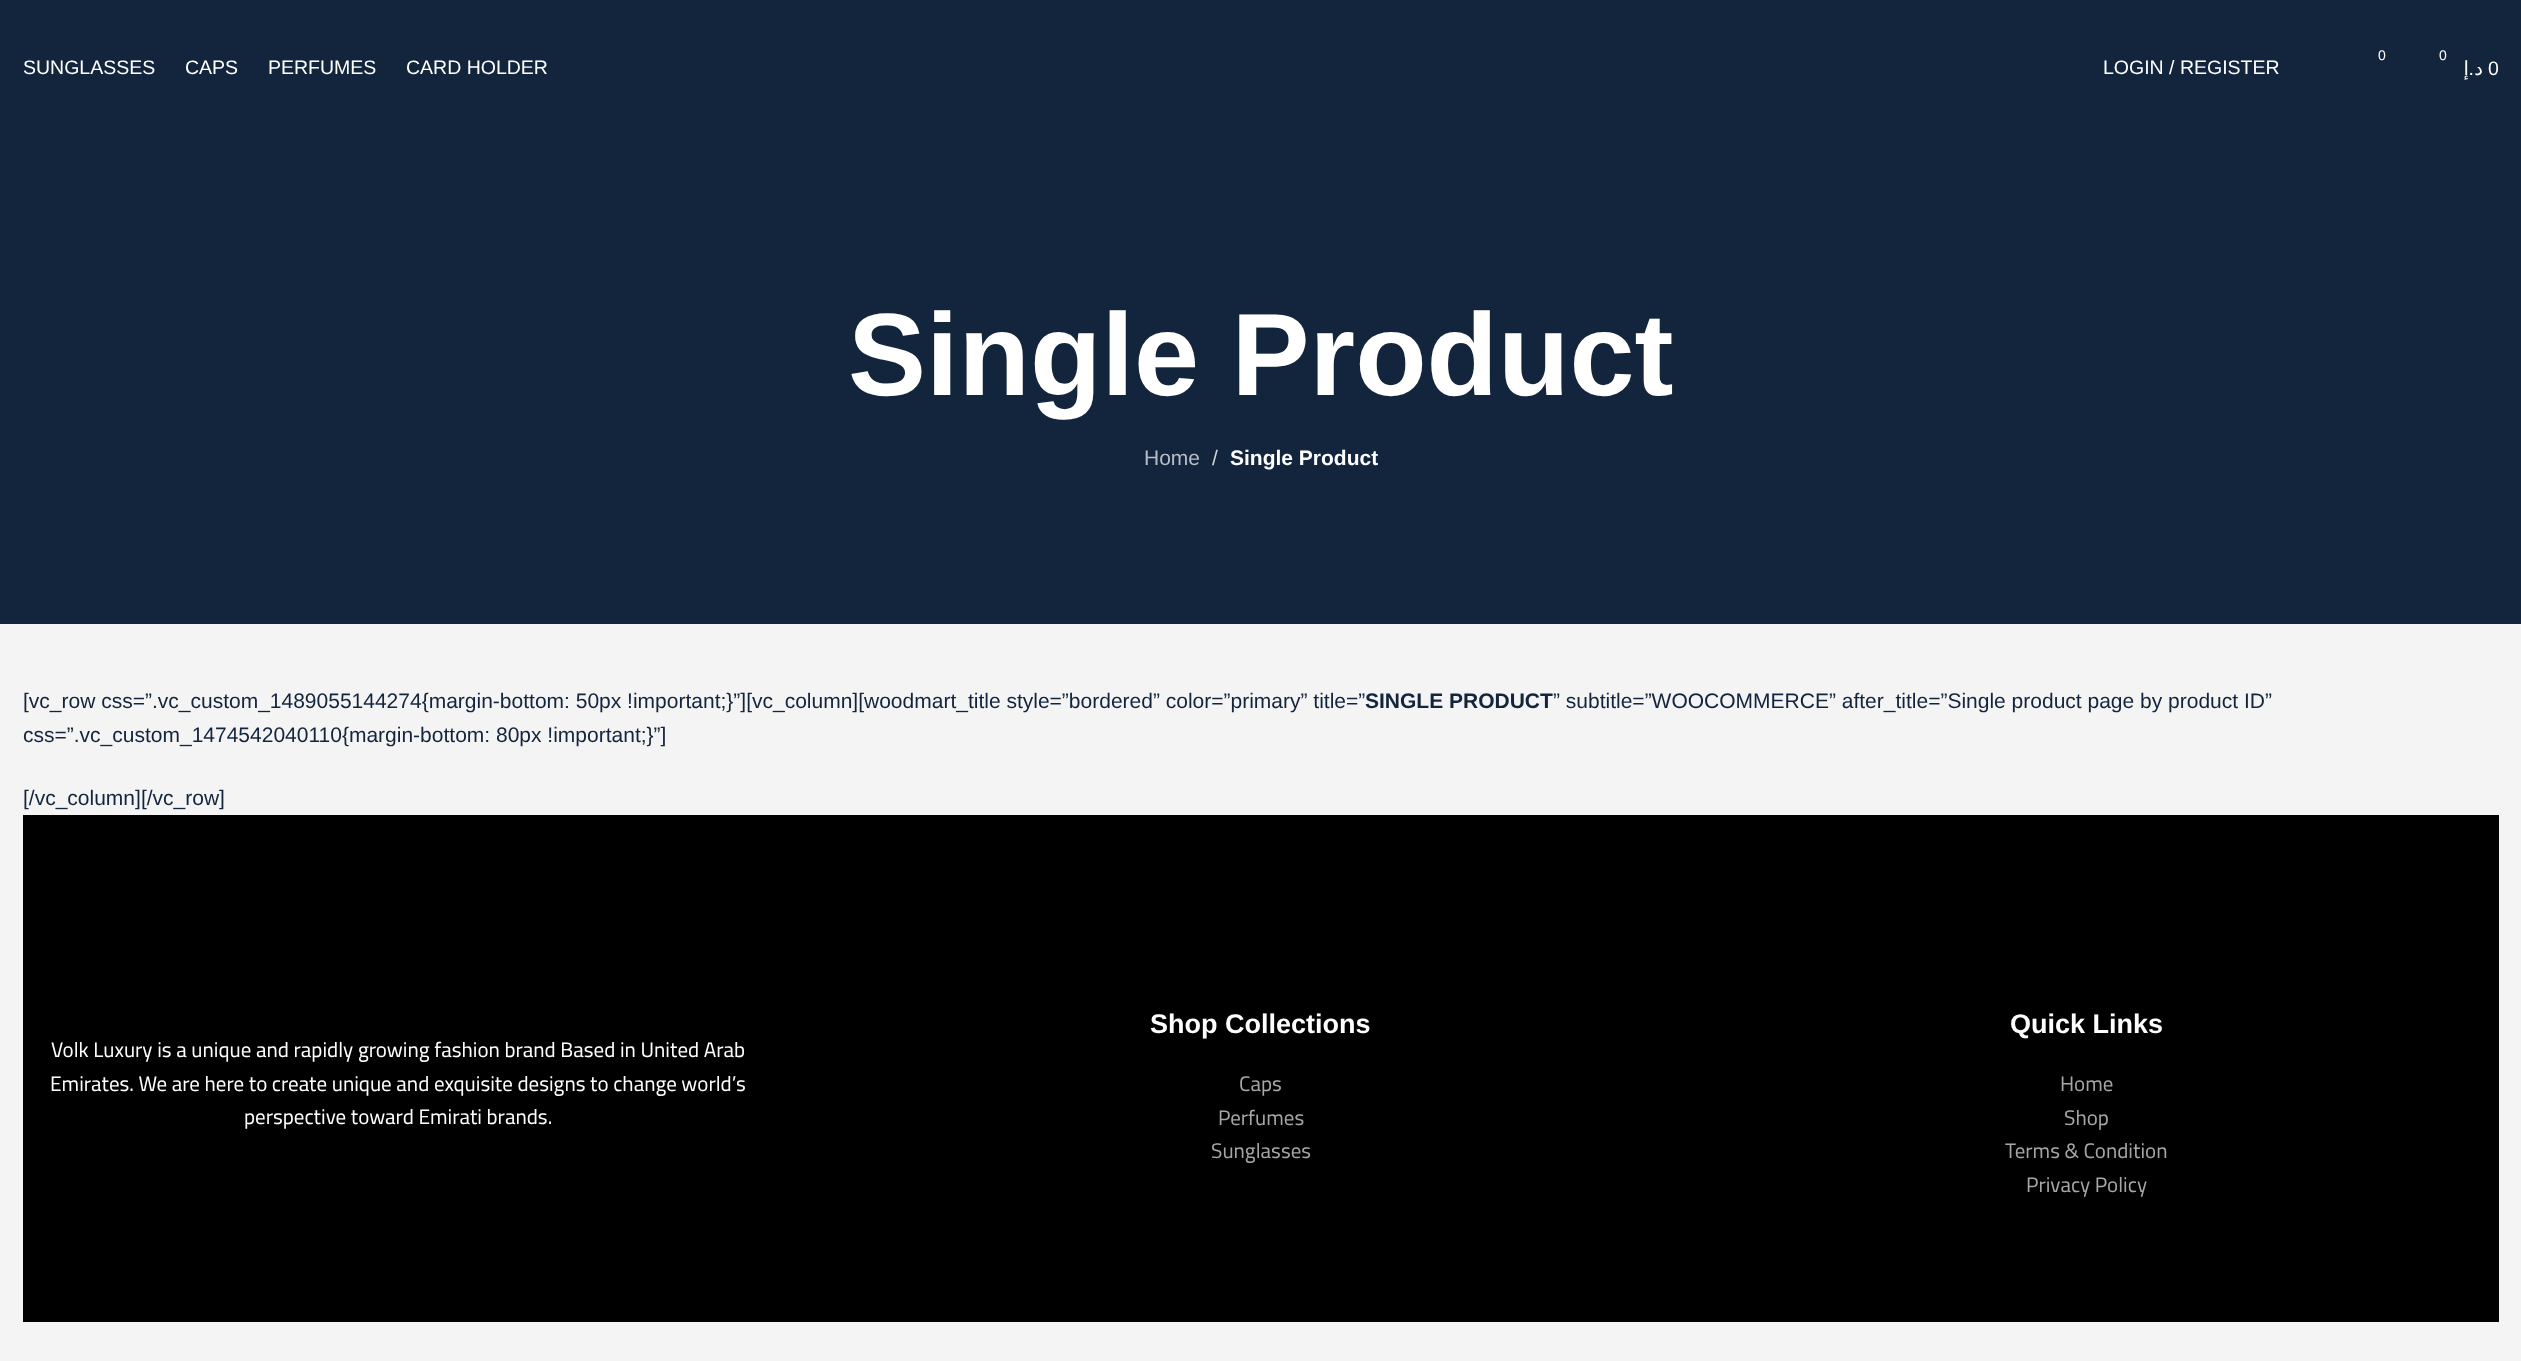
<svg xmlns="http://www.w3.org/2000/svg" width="2521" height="1361">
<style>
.a{font:19.5px Liberation Sans;fill:#fff}
.b{font:14px Liberation Sans;fill:#fff}
.c{font:19.5px DejaVu Sans;direction:rtl;fill:#fff}
.d{font:19.5px Liberation Sans;direction:rtl;fill:#fff}
.e{font:bold 117px Liberation Sans;fill:#fff}
.f{font:21px Liberation Sans;fill:#b8bdc5}
.g{font:21px Liberation Sans;fill:#d0d3d8}
.h{font:bold 21px Liberation Sans;fill:#fff}
.i{font:21px Liberation Sans;fill:#13243d}
.j{font:bold 21px Liberation Sans;fill:#13243d}
.k{font:21px Cairo;fill:#fff}
.l{font:bold 27px Liberation Sans;fill:#fff}
.m{font:21px Cairo;fill:#a6a6a6}
</style>
<rect width="100%" height="100%" fill="#f4f4f4"/>
<path fill="#13243d" d="M0 0h2521v624H0z"/>
<path fill="#000" d="M23 815h2476v507H23z"/>
<text class="a" x="23" y="74">SUNGLASSES</text>
<text class="a" x="185" y="74">CAPS</text>
<text class="a" x="268" y="74">PERFUMES</text>
<text class="a" x="406" y="74">CARD HOLDER</text>
<text class="a" x="2103" y="74">LOGIN / REGISTER</text>
<text class="b" x="2378" y="60">0</text>
<text class="b" x="2439" y="60">0</text>
<text class="c" x="2469" y="75">إ</text>
<text class="d" x="2474" y="75">.</text>
<text class="c" x="2483" y="75">د</text>
<text class="a" x="2488" y="75">0</text>
<text class="e" x="848" y="395">Single Product</text>
<text class="f" x="1144" y="465">Home</text>
<text class="g" x="1212" y="465">/</text>
<text class="h" x="1230" y="465">Single Product</text>
<text class="i" x="23" y="708">[vc_row css=”.vc_custom_1489055144274{margin-bottom: 50px !important;}”][vc_column][woodmart_title style=”bordered” color=”primary” title=”</text>
<text class="j" x="1365" y="708">SINGLE PRODUCT</text>
<text class="i" x="1553" y="708">” subtitle=”WOOCOMMERCE” after_title=”Single product page by product ID”</text>
<text class="i" x="23" y="742">css=”.vc_custom_1474542040110{margin-bottom: 80px !important;}”]</text>
<text class="i" x="23" y="805">[/vc_column][/vc_row]</text>
<text class="k" x="51" y="1057">Volk Luxury is a unique and rapidly growing fashion brand Based in United Arab</text>
<text class="k" x="50" y="1091">Emirates. We are here to create unique and exquisite designs to change world’s</text>
<text class="k" x="244" y="1124">perspective toward Emirati brands.</text>
<text class="l" x="1150" y="1033">Shop Collections</text>
<text class="m" x="1239" y="1091">Caps</text>
<text class="m" x="1218" y="1125">Perfumes</text>
<text class="m" x="1211" y="1158">Sunglasses</text>
<text class="l" x="2010" y="1033">Quick Links</text>
<text class="m" x="2060" y="1091">Home</text>
<text class="m" x="2064" y="1125">Shop</text>
<text class="m" x="2005" y="1158">Terms &amp; Condition</text>
<text class="m" x="2026" y="1192">Privacy Policy</text>
</svg>
